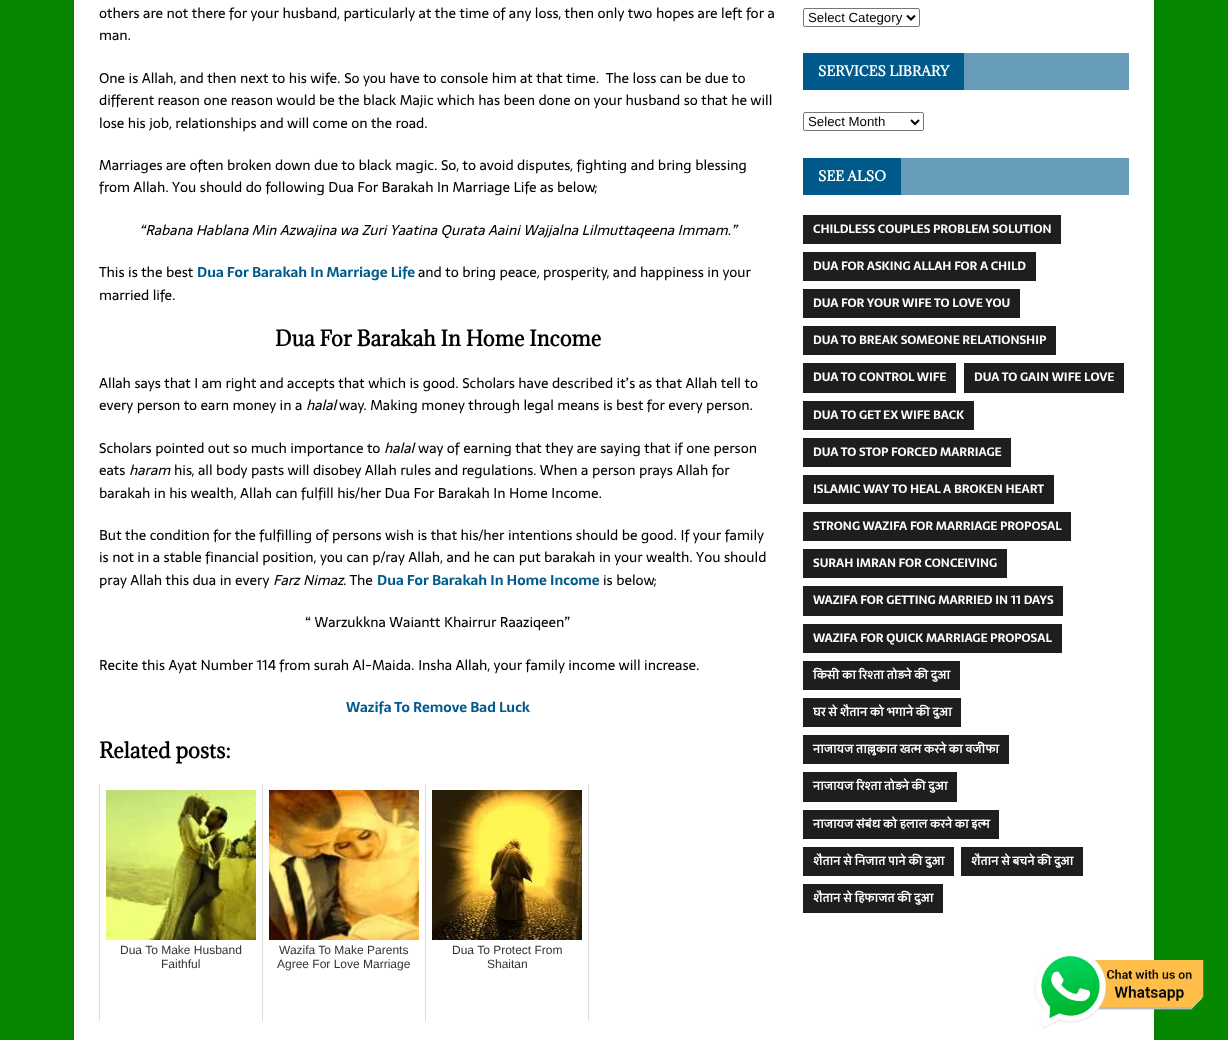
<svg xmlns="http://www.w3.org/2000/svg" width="1228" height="1040">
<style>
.a{font:14px Sarala;fill:#000}
.b{font:italic 14px Sarala;fill:#000}
.c{font:bold 14px Sarala;fill:#005a8c}
.d{font:bold 20px Adamina;fill:#000}
.e{font:12px Liberation Sans;fill:#333}
.f{font:13.25px Liberation Sans;fill:#000}
.g{font:bold 13px Adamina;fill:#fff}
.h{font:bold 12px Sarala;fill:#fff}
.i{font:bold 12px 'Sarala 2';fill:#fff}
</style>
<rect width="100%" height="100%" fill="#068700"/>
<path fill="#3232322b" filter="blur(5px)" d="M74 -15h1080v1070H74z"/>
<path fill="#fff" d="M74 0h1080v1040H74z"/>
<path fill="#ddd" d="M99 784h1v237H99z"/>
<image href="1.png" x="106" y="790" width="150" height="150"/>
<path fill="#ddd" d="M262 784h1v237H262z"/>
<image href="2.png" x="269" y="790" width="150" height="150"/>
<path fill="#ddd" d="M588 784h1v237H588z"/>
<path fill="#ddd" d="M425 784h1v237H425z"/>
<image href="3.png" x="432" y="790" width="150" height="150"/>
<rect fill="none" stroke="#767676" x="803.5" y="8.5" width="116" height="18" rx="1.5"/>
<path fill="none" stroke="#000" stroke-width="2" d="M907 15.5l4 4l4-4"/>
<path fill="#669cba" d="M964 53h165v37H964z"/>
<path fill="#005a8c" d="M803 53h161v37H803z"/>
<rect fill="none" stroke="#767676" x="803.5" y="112.5" width="120" height="18" rx="1.5"/>
<path fill="none" stroke="#000" stroke-width="2" d="M911 120l4 4l4-4"/>
<path fill="#669cba" d="M901 158h228v37H901z"/>
<path fill="#005a8c" d="M803 158h98v37H803z"/>
<path fill="#1f1e1e" d="M803 215h258v29H803z"/>
<path fill="#1f1e1e" d="M803 252h233v29H803z"/>
<path fill="#1f1e1e" d="M803 289h217v29H803z"/>
<path fill="#1f1e1e" d="M803 326h253v29H803z"/>
<path fill="#1f1e1e" d="M803 363h153v30H803z"/>
<path fill="#1f1e1e" d="M964 363h160v30H964z"/>
<path fill="#1f1e1e" d="M803 401h171v29H803z"/>
<path fill="#1f1e1e" d="M803 438h208v29H803z"/>
<path fill="#1f1e1e" d="M803 475h251v29H803z"/>
<path fill="#1f1e1e" d="M803 512h268v29H803z"/>
<path fill="#1f1e1e" d="M803 549h204v29H803z"/>
<path fill="#1f1e1e" d="M803 586h260v30H803z"/>
<path fill="#1f1e1e" d="M803 624h259v29H803z"/>
<path fill="#1f1e1e" d="M803 661h157v29H803z"/>
<path fill="#1f1e1e" d="M803 698h158v29H803z"/>
<path fill="#1f1e1e" d="M803 735h206v29H803z"/>
<path fill="#1f1e1e" d="M803 772h154v30H803z"/>
<path fill="#1f1e1e" d="M803 810h196v29H803z"/>
<path fill="#1f1e1e" d="M803 847h151v29H803z"/>
<path fill="#1f1e1e" d="M961 847h122v29H961z"/>
<path fill="#1f1e1e" d="M803 884h140v29H803z"/>
<image href="4.png" x="1033" y="952" width="171" height="77"/>
<text class="a" x="99" y="18">others are not there for your husband, particularly at the time of any loss, then only two hopes are left for a</text>
<text class="a" x="99" y="40">man.</text>
<text class="a" xml:space="preserve" x="99" y="83">One is Allah, and then next to his wife. So you have to console him at that time.  The loss can be due to</text>
<text class="a" x="99" y="105">different reason one reason would be the black Majic which has been done on your husband so that he will</text>
<text class="a" x="99" y="128">lose his job, relationships and will come on the road.</text>
<text class="a" x="99" y="170">Marriages are often broken down due to black magic. So, to avoid disputes, fighting and bring blessing</text>
<text class="a" x="99" y="192">from Allah. You should do following Dua For Barakah In Marriage Life as below;</text>
<text class="b" x="139" y="235">“Rabana Hablana Min Azwajina wa Zuri Yaatina Qurata Aaini Wajjalna Lilmuttaqeena Immam.”</text>
<text class="a" x="99" y="277">This is the best</text>
<text class="c" x="197" y="277">Dua For Barakah In Marriage Life</text>
<text class="a" x="418" y="277">and to bring peace, prosperity, and happiness in your</text>
<text class="a" x="99" y="300">married life.</text>
<text class="d" x="275" y="346">Dua For Barakah In Home Income</text>
<text class="a" x="99" y="388">Allah says that I am right and accepts that which is good. Scholars have described it’s as that Allah tell to</text>
<text class="a" x="99" y="410">every person to earn money in a</text>
<text class="b" x="306" y="410">halal</text>
<text class="a" x="339" y="410">way. Making money through legal means is best for every person.</text>
<text class="a" x="99" y="453">Scholars pointed out so much importance to</text>
<text class="b" x="384" y="453">halal</text>
<text class="a" x="418" y="453">way of earning that they are saying that if one person</text>
<text class="a" x="99" y="475">eats</text>
<text class="b" x="129" y="475">haram</text>
<text class="a" x="174" y="475">his, all body pasts will disobey Allah rules and regulations. When a person prays Allah for</text>
<text class="a" x="99" y="498">barakah in his wealth, Allah can fulfill his/her Dua For Barakah In Home Income.</text>
<text class="a" x="99" y="540">But the condition for the fulfilling of persons wish is that his/her intentions should be good. If your family</text>
<text class="a" x="99" y="562">is not in a stable financial position, you can p/ray Allah, and he can put barakah in your wealth. You should</text>
<text class="a" x="99" y="585">pray Allah this dua in every</text>
<text class="b" x="273" y="585">Farz Nimaz</text>
<text class="a" x="343" y="585">. The</text>
<text class="c" x="377" y="585">Dua For Barakah In Home Income</text>
<text class="a" x="603" y="585">is below;</text>
<text class="a" x="305" y="627">“ Warzukkna Waiantt Khairrur Raaziqeen”</text>
<text class="a" x="99" y="670">Recite this Ayat Number 114 from surah Al-Maida. Insha Allah, your family income will increase.</text>
<text class="c" x="346" y="712">Wazifa To Remove Bad Luck</text>
<text class="d" x="99" y="758">Related posts:</text>
<text class="e" x="120" y="954">Dua To Make Husband</text>
<text class="e" x="161" y="968">Faithful</text>
<text class="e" x="279" y="954">Wazifa To Make Parents</text>
<text class="e" x="277" y="968">Agree For Love Marriage</text>
<text class="e" x="452" y="954">Dua To Protect From</text>
<text class="e" x="487" y="968">Shaitan</text>
<text class="f" x="808" y="22">Select Category</text>
<text class="g" x="818" y="76">SERVICES LIBRARY</text>
<text class="f" x="808" y="126">Select Month</text>
<text class="g" x="818" y="181">SEE ALSO</text>
<text class="h" x="813" y="233">CHILDLESS COUPLES PROBLEM SOLUTION</text>
<text class="h" x="813" y="270">DUA FOR ASKING ALLAH FOR A CHILD</text>
<text class="h" x="813" y="307">DUA FOR YOUR WIFE TO LOVE YOU</text>
<text class="h" x="813" y="344">DUA TO BREAK SOMEONE RELATIONSHIP</text>
<text class="h" x="813" y="381">DUA TO CONTROL WIFE</text>
<text class="h" x="974" y="381">DUA TO GAIN WIFE LOVE</text>
<text class="h" x="813" y="419">DUA TO GET EX WIFE BACK</text>
<text class="h" x="813" y="456">DUA TO STOP FORCED MARRIAGE</text>
<text class="h" x="813" y="493">ISLAMIC WAY TO HEAL A BROKEN HEART</text>
<text class="h" x="813" y="530">STRONG WAZIFA FOR MARRIAGE PROPOSAL</text>
<text class="h" x="813" y="567">SURAH IMRAN FOR CONCEIVING</text>
<text class="h" x="813" y="604">WAZIFA FOR GETTING MARRIED IN 11 DAYS</text>
<text class="h" x="813" y="642">WAZIFA FOR QUICK MARRIAGE PROPOSAL</text>
<text class="i" x="813" y="679" word-spacing="-0.25">किसी का रिश्ता तोड़ने की दुआ</text>
<text class="i" x="813" y="716" word-spacing="-0.25">घर से शैतान को भगाने की दुआ</text>
<text class="i" x="813" y="753" word-spacing="-0.25">नाजायज ताल्लुकात खत्म करने का वजीफा</text>
<text class="i" x="813" y="790" word-spacing="-0.25">नाजायज रिश्ता तोड़ने की दुआ</text>
<text class="i" x="813" y="828" word-spacing="-0.25">नाजायज संबंध को हलाल करने का इल्म</text>
<text class="i" x="813" y="865" word-spacing="-0.25">शैतान से निजात पाने की दुआ</text>
<text class="i" x="971" y="865" word-spacing="-0.25">शैतान से बचने की दुआ</text>
<text class="i" x="813" y="902" word-spacing="-0.25">शैतान से हिफाजत की दुआ</text>
</svg>
